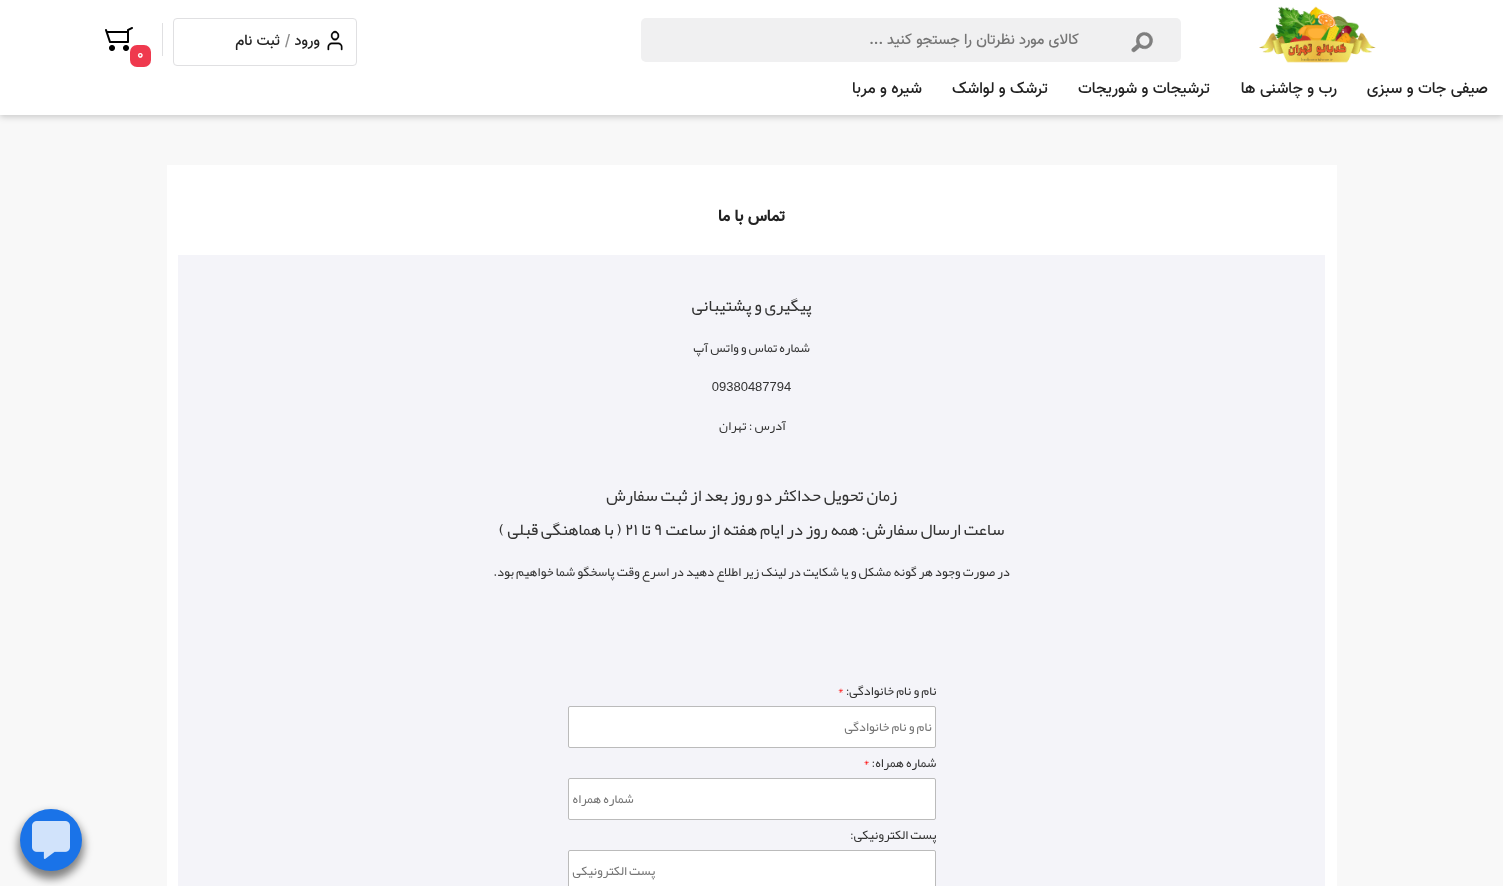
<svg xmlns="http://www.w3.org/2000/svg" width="1503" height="886">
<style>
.a{font:500 15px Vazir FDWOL;direction:rtl;fill:#757575}
.b{font:500 15px Vazir FDWOL;direction:rtl;fill:#222}
.c{font:18px Liberation Sans;fill:#8c8c8c}
.d{font:500 15px Vazir FDWOL;fill:#fff}
.e{font:500 16px Vazir FDWOL;direction:rtl;fill:#222}
.f{font:bold 16px Vazir FDWOL;direction:rtl;fill:#222}
</style>
<rect width="100%" height="100%" fill="#f8f8f8"/>
<path fill="#00000030" filter="blur(3px)" d="M0 2h1503v115H0z"/>
<path fill="#fff" d="M0 0h1503v115H0z"/>
<image href="1.png" x="1259" y="6" width="117" height="57"/>
<rect fill="#f0f0f1" x="641" y="18" width="540" height="44" rx="5"/>
<image href="2.png" x="1130" y="31" width="24" height="22"/>
<rect fill="none" stroke="#e0e0e2" x="173.5" y="18.5" width="183" height="47" rx="3.5"/>
<image href="3.png" x="327" y="30" width="16" height="21"/>
<path fill="#e0e0e2" d="M162 23h1v33H162z"/>
<image href="4.png" x="105" y="27" width="28" height="24"/>
<rect fill="#ef394e" x="130" y="45" width="21" height="22" rx="7"/>
<path fill="#fff" d="M167 165h1170v721H167z"/>
<image href="5.png" x="178" y="255" width="1147" height="631"/>
<rect fill="#0000007a" filter="blur(4px)" x="18" y="813" width="66" height="66" rx="33"/>
<circle fill="#1a73e8" cx="51" cy="840" r="31"/>
<image href="6.png" x="32" y="821" width="38" height="38"/>
<text class="a" x="1079" y="44">کالای مورد نظرتان را جستجو کنید ...</text>
<text class="b" x="320" y="45">ورود</text>
<text class="c" x="285" y="47">/</text>
<text class="b" x="280" y="45">ثبت نام</text>
<text class="d" x="137" y="59">0</text>
<text class="e" x="1488" y="93">صیفی جات و سبزی</text>
<text class="e" x="1337" y="93">رب و چاشنی ها</text>
<text class="e" x="1210" y="93">ترشیجات و شوریجات</text>
<text class="e" x="1048" y="93">ترشک و لواشک</text>
<text class="e" x="922" y="93">شیره و مربا</text>
<text class="f" x="785" y="221">تماس با ما</text>
</svg>
